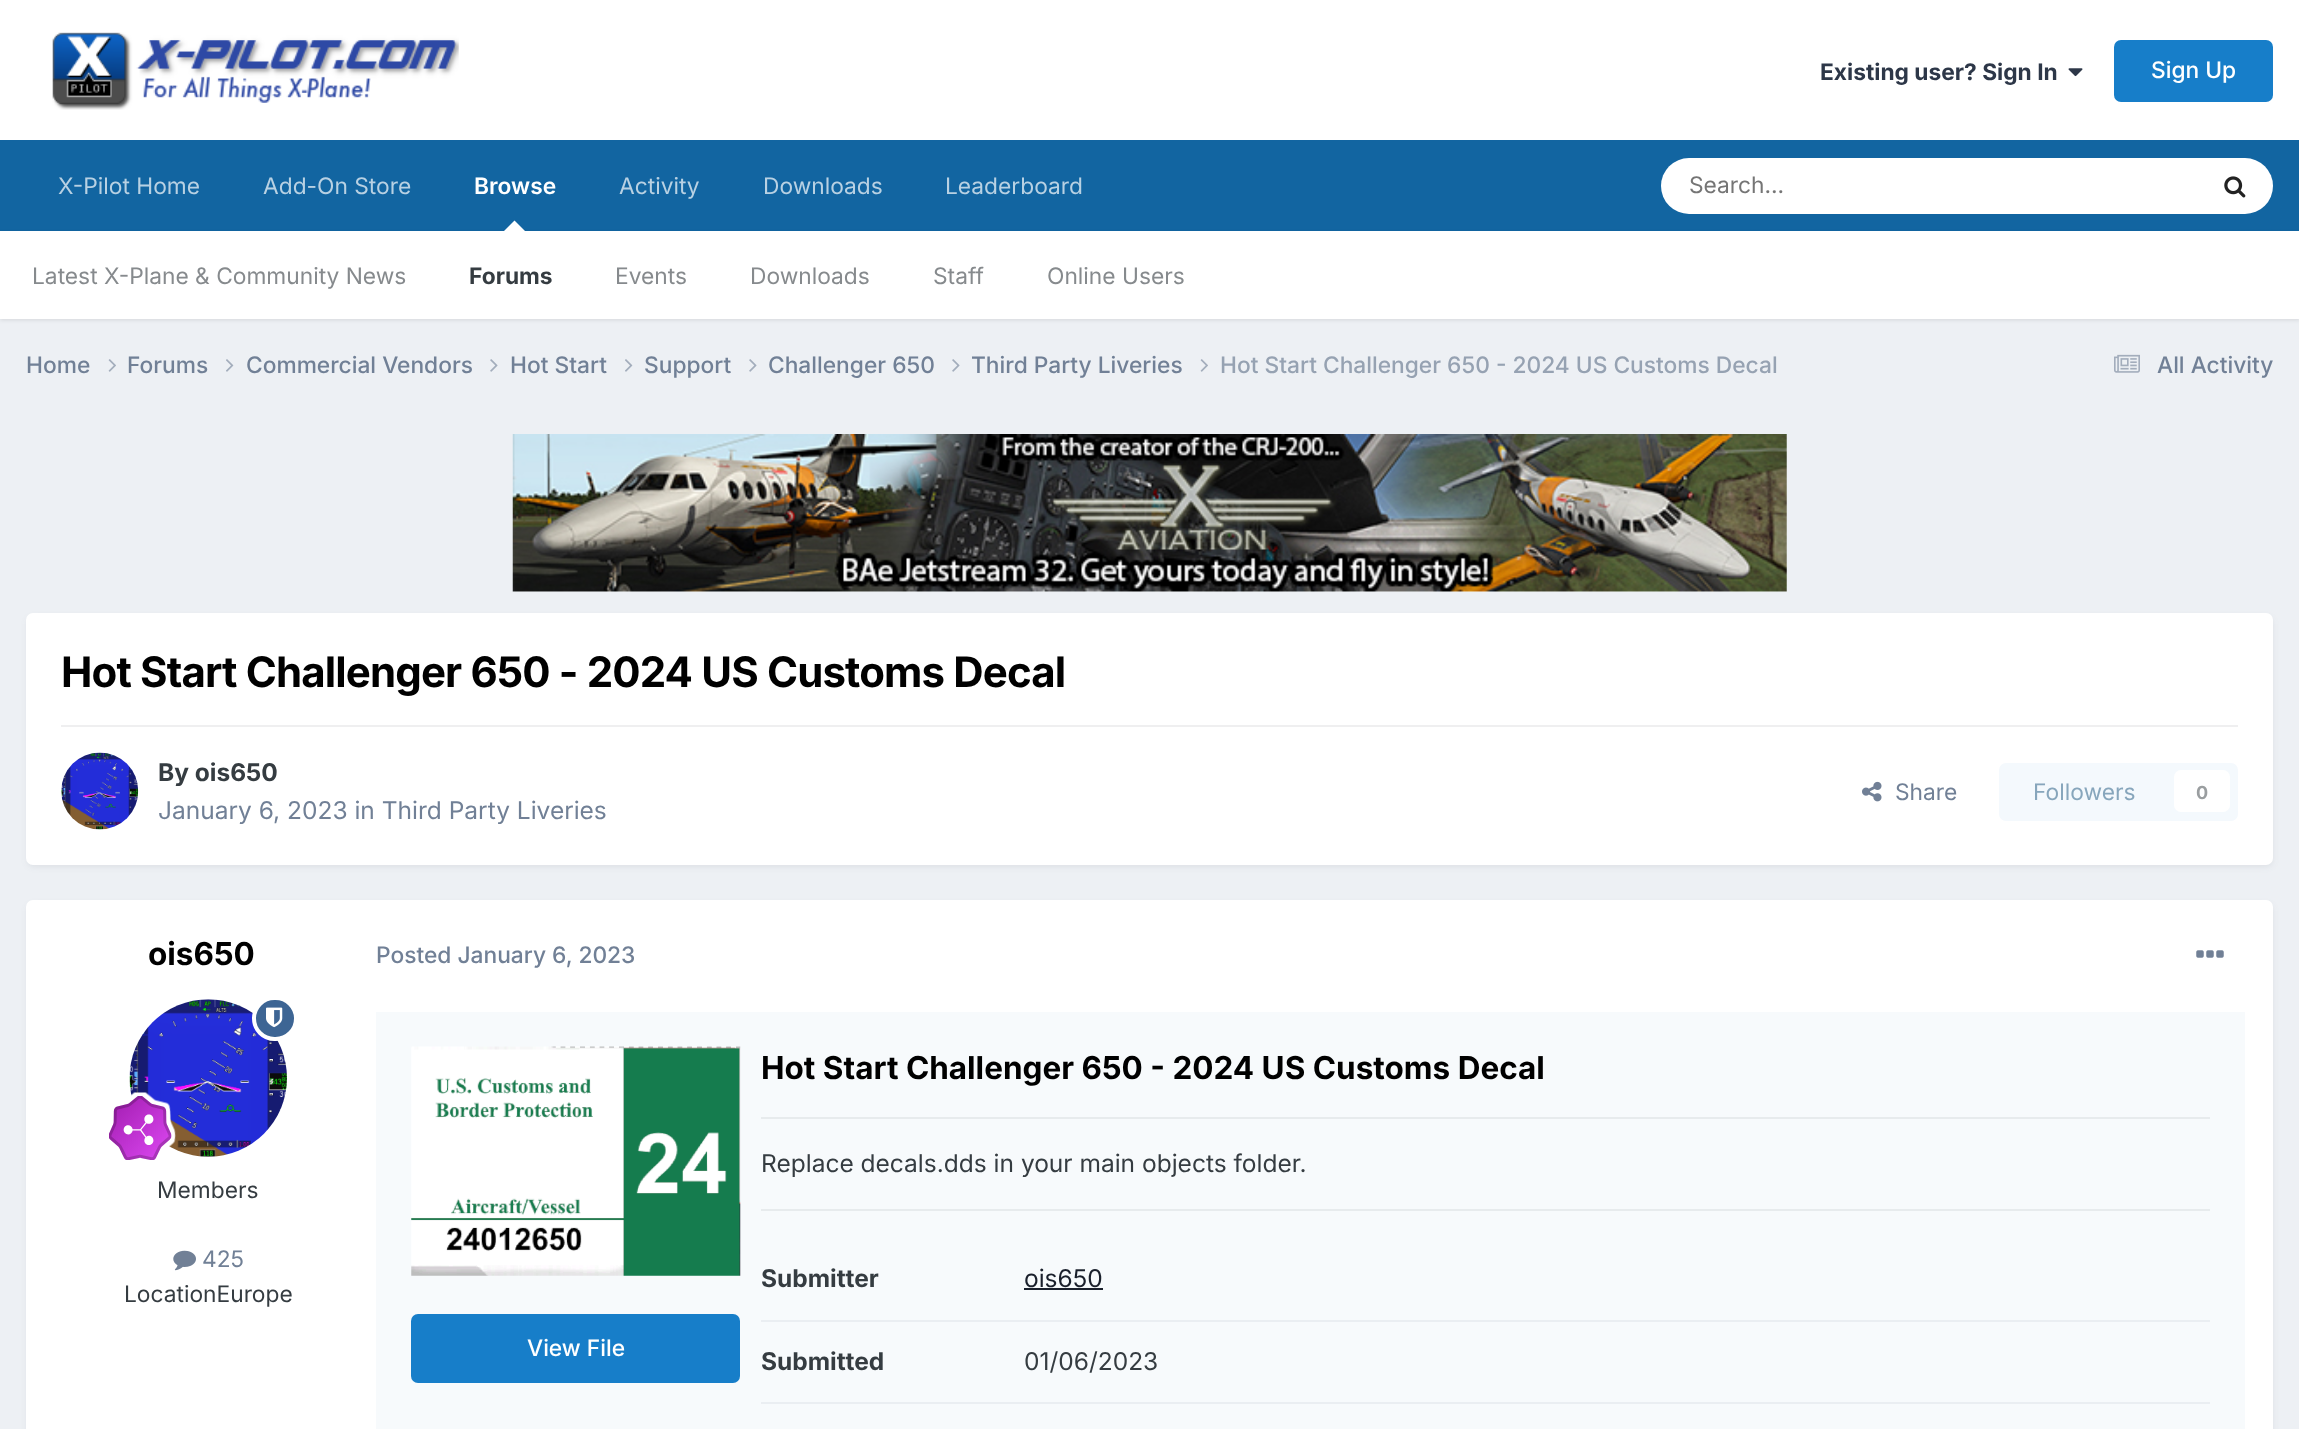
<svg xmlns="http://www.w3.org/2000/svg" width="2299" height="1429">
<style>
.a{font:bold 22.75px Inter;fill:#2d3748}
.b{font:500 22.75px Inter;fill:#fff}
.c{font:22.75px Inter;fill:#b8d1e3}
.d{font:600 22.75px Inter;fill:#fff}
.e{font:22.75px Inter;fill:#868a8d}
.f{font:bold 22.75px Inter;fill:#353c41}
.g{font:22.75px Inter;fill:#757575}
.h{font:500 22.75px Inter;fill:#718096}
.i{font:500 22.75px Inter;fill:#96a2b2}
.j{font:bold 42px Inter;letter-spacing:-0.85px;fill:#000}
.k{font:bold 24.5px Inter;fill:#353c41}
.l{font:24.5px Inter;fill:#718096}
.m{font:22.75px Inter;fill:#718096}
.n{font:22.75px Inter;fill:#87a6bc}
.o{font:bold 18px Inter;fill:#9a9ea0}
.p{font:bold 31.5px Inter;fill:#000}
.q{font:22.75px Inter;fill:#353c41}
.r{font:24.5px Inter;fill:#353c41}
.s{font:24.5px Inter;fill:#1a202c}
</style>
<rect width="100%" height="100%" fill="#edf0f4"/>
<path fill="#fff" d="M0 0h2299v140H0z"/>
<image href="1.png" x="52" y="32" width="407" height="78"/>
<image href="2.png" x="2068" y="68" width="15" height="9"/>
<rect fill="#177ec9" x="2114" y="40" width="159" height="62" rx="7"/>
<path fill="#1265a1" d="M0 140h2299v91H0z"/>
<path fill="#0000001a" filter="blur(2px)" d="M0 233h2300v87H0z"/>
<path fill="#fff" d="M525 231h-21l10.5-10.5z"/>
<rect fill="#fff" x="1661" y="158" width="612" height="56" rx="28"/>
<image href="3.png" x="2224" y="176" width="22" height="22"/>
<path fill="#fff" d="M0 231h2299v88H0z"/>
<image href="4.png" x="108" y="359" width="8" height="13"/>
<image href="5.png" x="226" y="359" width="8" height="13"/>
<image href="6.png" x="490" y="359" width="8" height="13"/>
<image href="5.png" x="625" y="359" width="8" height="13"/>
<image href="6.png" x="749" y="359" width="8" height="13"/>
<image href="6.png" x="952" y="359" width="8" height="13"/>
<image href="4.png" x="1200" y="359" width="8" height="13"/>
<image href="7.png" x="2114" y="354" width="26" height="19"/>
<path fill="#f7fafc" d="M513 434h1274v158H513z"/>
<image href="8.png" x="512" y="434" width="1275" height="158"/>
<rect fill="#2d37481a" filter="blur(3.5px)" x="28" y="618" width="2244" height="248" rx="5"/>
<rect fill="#fff" x="26" y="613" width="2247" height="252" rx="7"/>
<path fill="#efeff0" d="M61 725h2177v2H61z"/>
<image href="9.png" x="61" y="752" width="78" height="78"/>
<image href="10.png" x="1862" y="781" width="20" height="21"/>
<rect fill="#f4f9fd" x="1999" y="763" width="239" height="58" rx="7"/>
<rect fill="#fff" x="2174" y="770" width="56" height="42" rx="7"/>
<rect fill="#2d37481a" filter="blur(3.5px)" x="28" y="905" width="2244" height="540" rx="5"/>
<rect fill="#fff" x="26" y="900" width="2247" height="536" rx="7"/>
<image href="12.png" x="129" y="999" width="158" height="158"/>
<rect fill="#3d6594" stroke="#fff" stroke-width="4" x="254" y="998" width="42" height="41" rx="20.5"/>
<image href="11.png" x="266" y="1007" width="17" height="21"/>
<image href="13.png" x="109" y="1092" width="67" height="68"/>
<image href="14.png" x="173" y="1250" width="23" height="21"/>
<image href="15.png" x="2196" y="950" width="28" height="8"/>
<path fill="#f7fafc" d="M376 1012h1869v417H376z"/>
<image href="16.png" x="411" y="1046" width="330" height="230"/>
<rect fill="#177ec9" x="411" y="1314" width="329" height="69" rx="7"/>
<path fill="#e7ebed" d="M761 1117h1449v2H761z"/>
<path fill="#e7ebed" d="M761 1209h1449v2H761z"/>
<path fill="#eaeef2" d="M761 1320h1449v2H761z"/>
<path fill="#1a202c" d="M1024 1288h79v2H1024z"/>
<path fill="#eaeef2" d="M761 1402h1449v2H761z"/>
<text class="a" x="1820" y="80">Existing user? Sign In</text>
<text class="b" x="2151" y="78">Sign Up</text>
<text class="c" x="58" y="194">X-Pilot Home</text>
<text class="c" x="619" y="194">Activity</text>
<text class="d" x="474" y="194">Browse</text>
<text class="e" x="32" y="284">Latest X-Plane &amp; Community News</text>
<text class="f" x="469" y="284">Forums</text>
<text class="e" x="615" y="284">Events</text>
<text class="e" x="750" y="284">Downloads</text>
<text class="e" x="933" y="284">Staff</text>
<text class="e" x="1047" y="284">Online Users</text>
<text class="c" x="263" y="194">Add-On Store</text>
<text class="c" x="763" y="194">Downloads</text>
<text class="c" x="945" y="194">Leaderboard</text>
<text class="g" x="1689" y="193">Search...</text>
<text class="h" x="26" y="373">Home</text>
<text class="h" x="127" y="373">Forums</text>
<text class="h" x="246" y="373">Commercial Vendors</text>
<text class="h" x="510" y="373">Hot Start</text>
<text class="h" x="644" y="373">Support</text>
<text class="h" x="768" y="373">Challenger 650</text>
<text class="h" x="971" y="373">Third Party Liveries</text>
<text class="i" x="1220" y="373">Hot Start Challenger 650 - 2024 US Customs Decal</text>
<text class="h" x="2157" y="373">All Activity</text>
<text class="j" x="61" y="687">Hot Start Challenger 650 - 2024 US Customs Decal</text>
<text class="k" x="158" y="781">By ois650</text>
<text class="l" x="158" y="819">January 6, 2023 in Third Party Liveries</text>
<text class="m" x="1895" y="800">Share</text>
<text class="n" x="2033" y="800">Followers</text>
<text class="o" x="2196" y="799">0</text>
<text class="p" x="148" y="965">ois650</text>
<text class="q" x="157" y="1198">Members</text>
<text class="m" x="202" y="1267">425</text>
<text class="q" x="124" y="1302">LocationEurope</text>
<text class="h" x="376" y="963">Posted January 6, 2023</text>
<text class="b" x="527" y="1356">View File</text>
<text class="p" x="761" y="1079">Hot Start Challenger 650 - 2024 US Customs Decal</text>
<text class="r" x="761" y="1172">Replace decals.dds in your main objects folder.</text>
<text class="k" x="761" y="1287">Submitter</text>
<text class="s" x="1024" y="1287">ois650</text>
<text class="k" x="761" y="1370">Submitted</text>
<text class="r" x="1024" y="1370">01/06/2023</text>
</svg>
